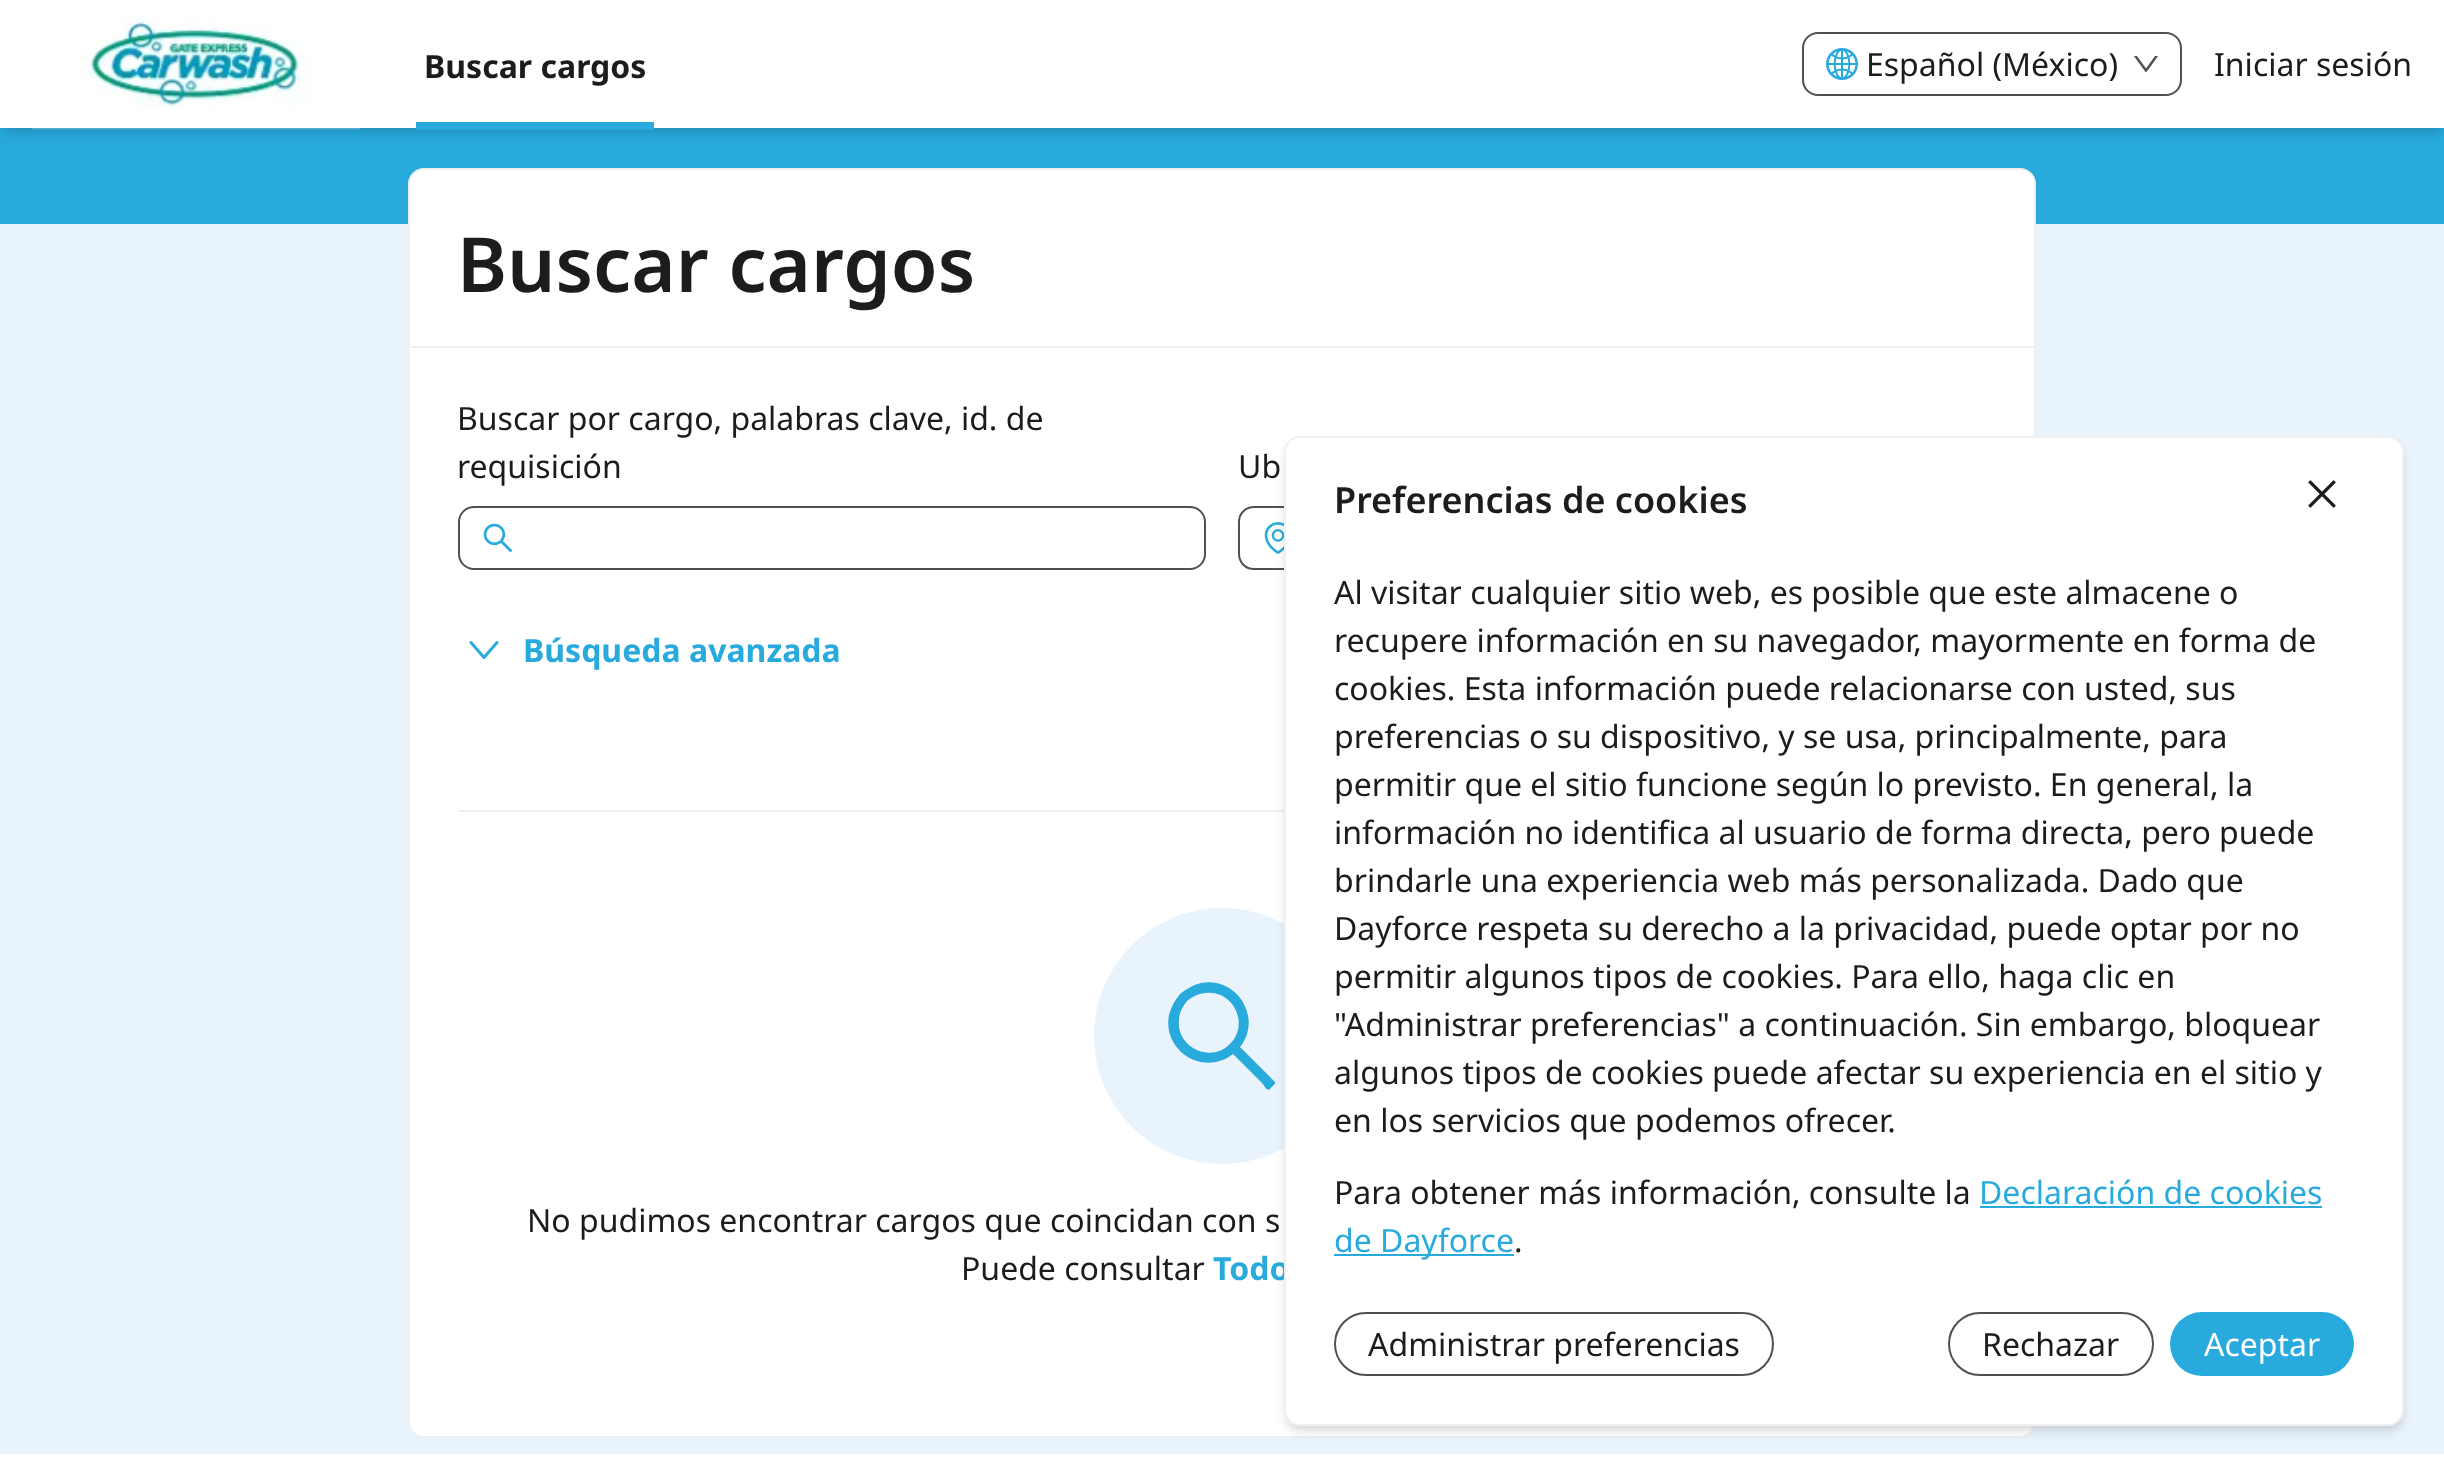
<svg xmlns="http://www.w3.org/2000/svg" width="2444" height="1466">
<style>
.a{font:bold 32px Noto Sans;fill:#1c1c1e}
.b{font:32px Noto Sans;fill:#1c1c1e}
.c{font:600 76px Noto Sans;fill:#1c1c1e}
.d{font:bold 32px Noto Sans;fill:#28aadd}
.e{font:600 36px Noto Sans;fill:#1c1c1e}
.f{font:32px Noto Sans;fill:#28aadd}
.g{font:32px Noto Sans;fill:#fff}
</style>
<rect width="100%" height="100%" fill="#fff"/>
<path fill="#28aadd" d="M0 128h2444v96H0z"/>
<path fill="#0000001a" filter="blur(4px)" d="M4 8h2436v120H4z"/>
<path fill="#0000001a" filter="blur(6px)" d="M2 10h2440v124H2z"/>
<path fill="#fff" d="M0 1h2444v127H0z"/>
<image href="1.png" x="32" y="14" width="329" height="116"/>
<path fill="#28aadd" d="M416 122h238v8H416z"/>
<rect fill="none" stroke="#505050" stroke-width="2" x="1803" y="33" width="378" height="62" rx="15"/>
<image href="2.png" x="1826" y="48" width="32" height="32"/>
<image href="3.png" x="2134" y="56" width="24" height="16"/>
<path fill="#e9f3fc" d="M0 224h2444v1230H0z"/>
<rect fill="#fff" stroke="#f0f0f0" stroke-width="2" x="409" y="169" width="1626" height="1268" rx="15"/>
<path fill="#f0f0f0" d="M410 346h1624v2H410z"/>
<rect fill="none" stroke="#505050" stroke-width="2" x="459" y="507" width="746" height="62" rx="15"/>
<image href="4.png" x="483" y="523" width="30" height="30"/>
<path fill="none" stroke="#505050" stroke-width="2" d="M1254 507h419v62h-419c-8.5 0-15-6.5-15-15v-32c0-8.5 6.5-15 15-15z"/>
<image href="5.png" x="1264" y="522" width="20" height="32"/>
<path fill="none" stroke="#28aadd" stroke-width="3" stroke-linecap="round" stroke-linejoin="round" d="M471 642.5l13 15l13-15"/>
<path fill="#f0f0f0" d="M458 810h826v2H458z"/>
<circle fill="#e9f3fc" cx="1222" cy="1036" r="128"/>
<path fill="#28aadd" d="M1275 1082l-35-35c23-29-3-71-39-64c-8 2-15 6-21 11c-5 6-9 13-11 21c-7 36 35 62 64 39l29 29c4 5 5 9 9 5c0-1 6-5 4-6zm-45-38c-20 20-54 3-51-24c0-7 4-14 8-19c5-4 12-8 19-8c27-3 44 31 24 51z"/>
<rect fill="#0000001a" filter="blur(4px)" x="1288" y="444" width="1112" height="982" rx="12"/>
<rect fill="#0000001a" filter="blur(6px)" x="1286" y="446" width="1116" height="986" rx="14"/>
<text class="a" x="424" y="78">Buscar cargos</text>
<text class="b" x="1866" y="76">Español (México)</text>
<text class="b" x="2214" y="76">Iniciar sesión</text>
<text class="c" x="457" y="292">Buscar cargos</text>
<text class="b" x="457" y="430">Buscar por cargo, palabras clave, id. de</text>
<text class="b" x="457" y="478">requisición</text>
<text class="b" x="1238" y="478">Ub</text>
<text class="d" x="523" y="662">Búsqueda avanzada</text>
<text class="b" x="527" y="1232">No pudimos encontrar cargos que coincidan con s</text>
<text class="b" x="961" y="1280">Puede consultar</text>
<text class="d" x="1213" y="1280">Todo</text>
<rect fill="#fff" stroke="#f0f0f0" stroke-width="2" x="1285" y="437" width="1118" height="988" rx="15"/>
<text class="e" x="1334" y="513">Preferencias de cookies</text>
<image href="6.png" x="2308" y="480" width="28" height="28"/>
<text class="b" x="1334" y="604">Al visitar cualquier sitio web, es posible que este almacene o</text>
<text class="b" x="1334" y="652">recupere información en su navegador, mayormente en forma de</text>
<text class="b" x="1334" y="700">cookies. Esta información puede relacionarse con usted, sus</text>
<text class="b" x="1334" y="748">preferencias o su dispositivo, y se usa, principalmente, para</text>
<text class="b" x="1334" y="796">permitir que el sitio funcione según lo previsto. En general, la</text>
<text class="b" x="1334" y="844">información no identifica al usuario de forma directa, pero puede</text>
<text class="b" x="1334" y="892">brindarle una experiencia web más personalizada. Dado que</text>
<text class="b" x="1334" y="940">Dayforce respeta su derecho a la privacidad, puede optar por no</text>
<text class="b" x="1334" y="988">permitir algunos tipos de cookies. Para ello, haga clic en</text>
<text class="b" x="1334" y="1036">"Administrar preferencias" a continuación. Sin embargo, bloquear</text>
<text class="b" x="1334" y="1084">algunos tipos de cookies puede afectar su experiencia en el sitio y</text>
<text class="b" x="1334" y="1132">en los servicios que podemos ofrecer.</text>
<text class="b" x="1334" y="1204">Para obtener más información, consulte la</text>
<text class="f" x="1979" y="1204">Declaración de cookies</text>
<path fill="#28aadd" d="M1980 1206h342v2H1980z"/>
<path fill="#28aadd" d="M1334 1254h180v2H1334z"/>
<text class="f" x="1334" y="1252">de Dayforce</text>
<text class="b" x="1514" y="1252">.</text>
<rect fill="none" stroke="#505050" stroke-width="2" x="1335" y="1313" width="438" height="62" rx="31"/>
<text class="b" x="1368" y="1356">Administrar preferencias</text>
<rect fill="none" stroke="#505050" stroke-width="2" x="1949" y="1313" width="204" height="62" rx="31"/>
<text class="b" x="1982" y="1356">Rechazar</text>
<rect fill="#28aadd" x="2170" y="1312" width="184" height="64" rx="32"/>
<text class="g" x="2204" y="1356">Aceptar</text>
</svg>
